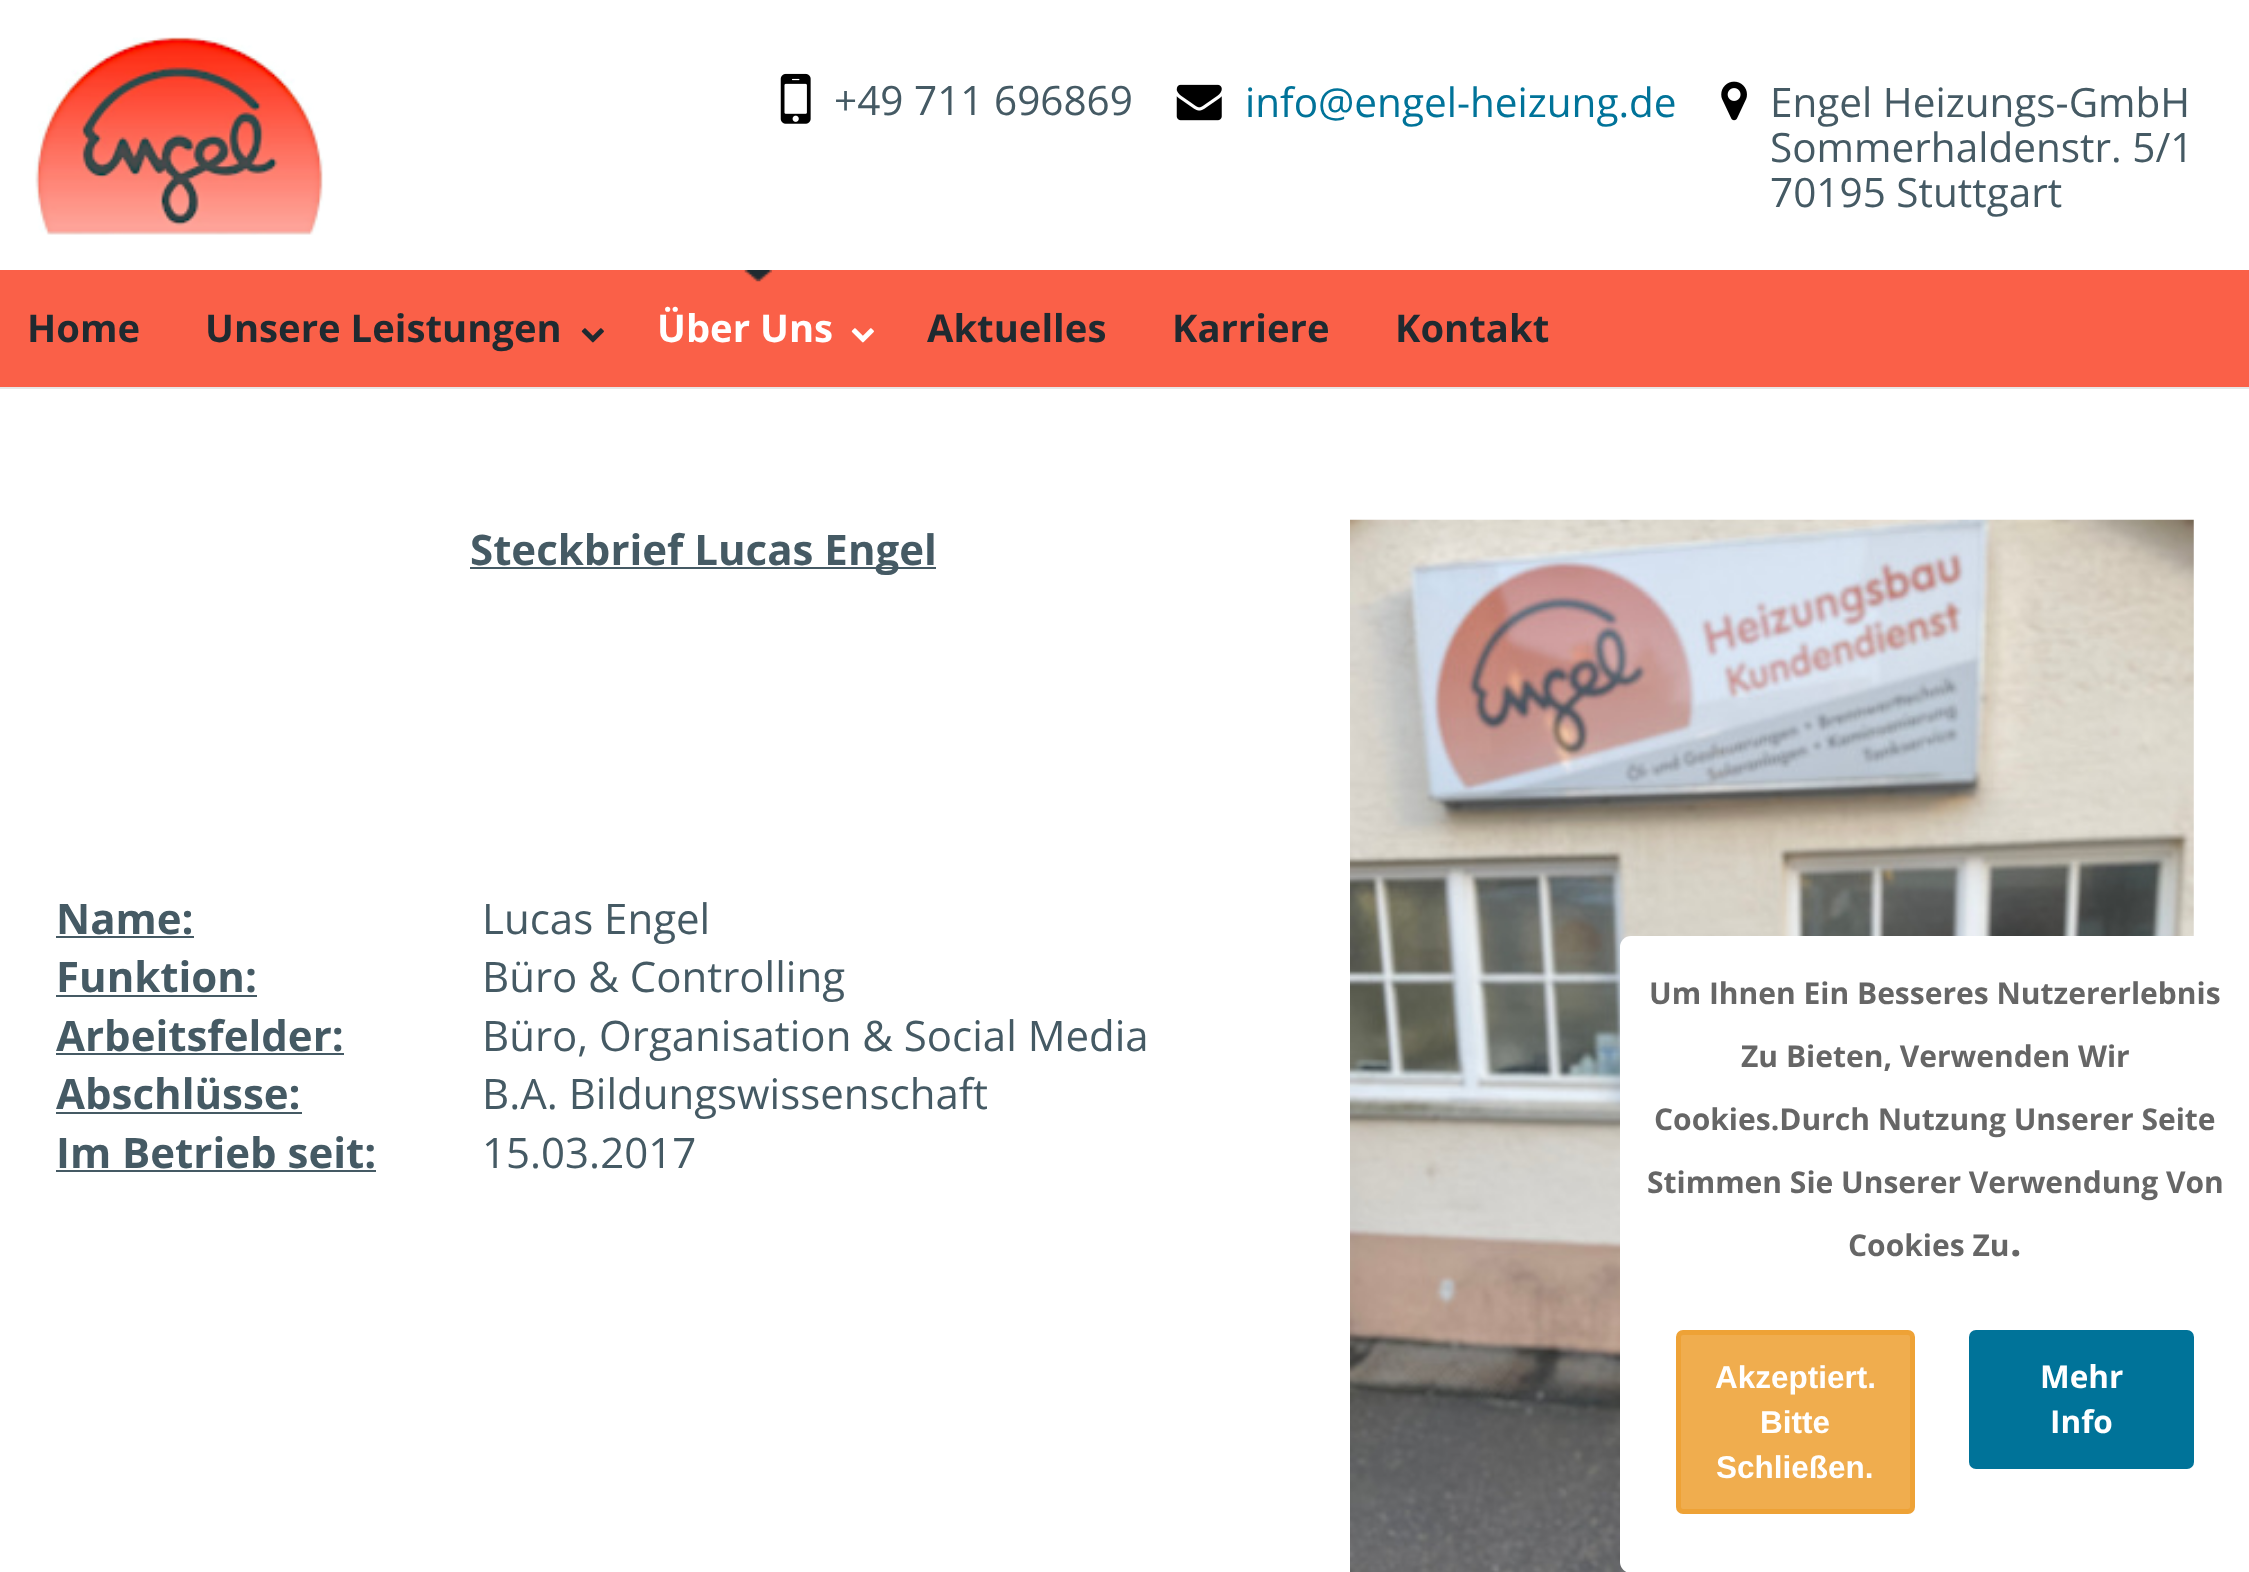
<svg xmlns="http://www.w3.org/2000/svg" width="2249" height="1572">
<style>
.a{font:40.5px Open Sans;fill:#455a64}
.b{font:40.5px Open Sans;fill:#007399}
.c{font:bold 38.25px Open Sans;fill:#1f2a30}
.d{font:bold 38.25px Open Sans;fill:#fff}
.e{font:bold 42px Open Sans;fill:#455a64}
.f{font:42px Open Sans;fill:#455a64}
.g{font:bold 30px Open Sans;fill:#666}
.h{font:bold 40.5px Open Sans;fill:#666}
.i{font:bold 31.5px Liberation Sans;fill:#fff}
.j{font:bold 31.5px Open Sans;fill:#fff}
</style>
<rect width="100%" height="100%" fill="#fff"/>
<image href="1.png" x="34" y="37" width="290" height="198"/>
<image href="2.png" x="780" y="73" width="31" height="51"/>
<image href="3.png" x="1176" y="84" width="46" height="37"/>
<image href="4.png" x="1721" y="81" width="26" height="40"/>
<path fill="#fa6048" d="M0 270h2249v117H0z"/>
<path fill="#e7e7e7" d="M0 387h2249v2H0z"/>
<image href="5.png" x="581" y="328" width="23" height="15"/>
<image href="6.png" x="744" y="270" width="28" height="12"/>
<image href="7.png" x="851" y="328" width="23" height="15"/>
<path fill="#455a64" d="M470 567h466v2H470z"/>
<image href="8.png" x="1350" y="519" width="844" height="1053"/>
<path fill="#455a64" d="M56 936h138v2H56z"/>
<path fill="#455a64" d="M56 995h201v2H56z"/>
<path fill="#455a64" d="M56 1053h288v2H56z"/>
<path fill="#455a64" d="M56 1112h246v2H56z"/>
<path fill="#455a64" d="M56 1170h320v2H56z"/>
<rect fill="#fff" x="1620" y="936" width="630" height="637" rx="11"/>
<rect fill="#f0ad4e" stroke="#eea236" stroke-width="5" x="1678.5" y="1332.5" width="234" height="179" rx="4.5"/>
<rect fill="#007399" x="1969" y="1330" width="225" height="139" rx="7"/>
<text class="a" x="834" y="115">+49 711 696869</text>
<text class="b" x="1245" y="117">info@engel-heizung.de</text>
<text class="a" x="1770" y="117">Engel Heizungs-GmbH</text>
<text class="a" x="1770" y="162">Sommerhaldenstr. 5/1</text>
<text class="a" x="1770" y="207">70195 Stuttgart</text>
<text class="c" x="27" y="342">Home</text>
<text class="c" x="205" y="342">Unsere Leistungen</text>
<text class="d" x="657" y="342">Über Uns</text>
<text class="c" x="927" y="342">Aktuelles</text>
<text class="c" x="1172" y="342">Karriere</text>
<text class="c" x="1395" y="342">Kontakt</text>
<text class="e" x="470" y="565">Steckbrief Lucas Engel</text>
<text class="e" x="56" y="934">Name:</text>
<text class="f" x="482" y="934">Lucas Engel</text>
<text class="e" x="56" y="992">Funktion:</text>
<text class="f" x="482" y="992">Büro &amp; Controlling</text>
<text class="e" x="56" y="1051">Arbeitsfelder:</text>
<text class="f" x="482" y="1051">Büro, Organisation &amp; Social Media</text>
<text class="e" x="56" y="1109">Abschlüsse:</text>
<text class="f" x="482" y="1109">B.A. Bildungswissenschaft</text>
<text class="e" x="56" y="1168">Im Betrieb seit:</text>
<text class="f" x="482" y="1168">15.03.2017</text>
<text class="g" x="1649" y="1004">Um Ihnen Ein Besseres Nutzererlebnis</text>
<text class="g" x="1741" y="1067">Zu Bieten, Verwenden Wir</text>
<text class="g" x="1654" y="1130">Cookies.Durch Nutzung Unserer Seite</text>
<text class="g" x="1647" y="1193">Stimmen Sie Unserer Verwendung Von</text>
<text class="g" x="1848" y="1256">Cookies Zu</text>
<text class="h" x="2010" y="1256">.</text>
<text class="i" x="1715" y="1388">Akzeptiert.</text>
<text class="i" x="1760" y="1433">Bitte</text>
<text class="i" x="1716" y="1478">Schließen.</text>
<text class="j" x="2040" y="1388">Mehr</text>
<text class="j" x="2050" y="1433">Info</text>
</svg>
